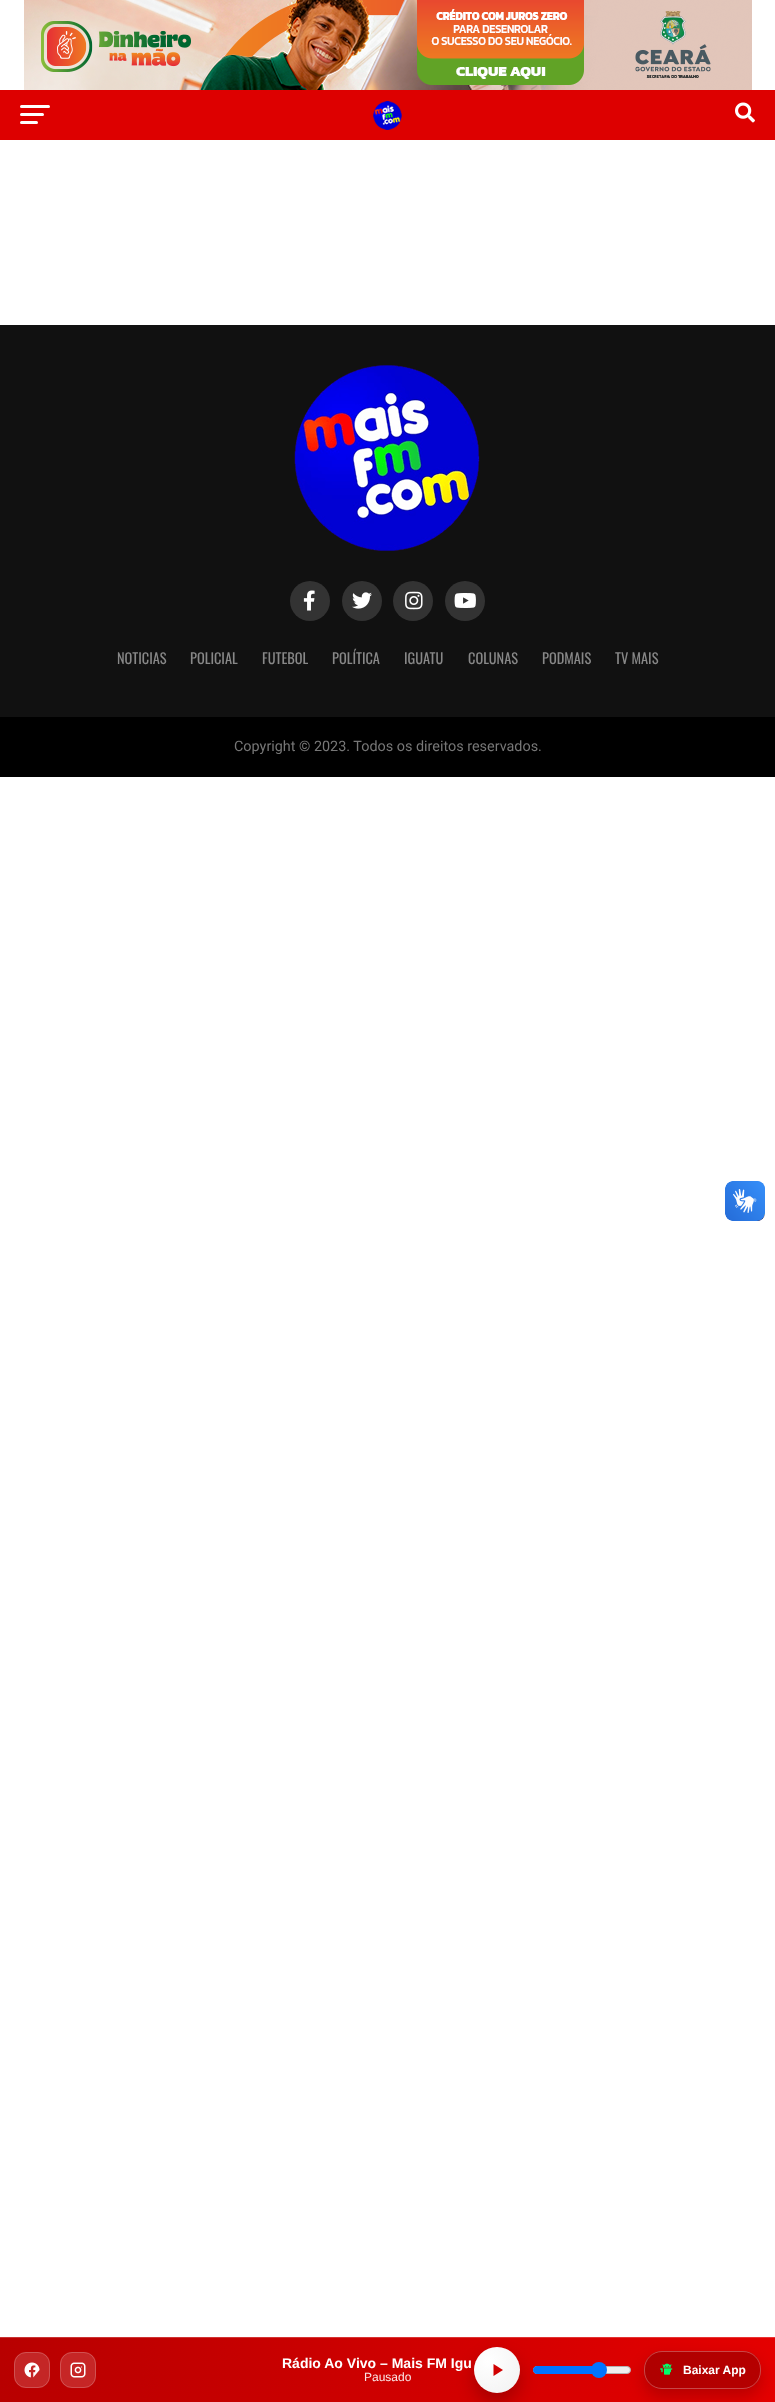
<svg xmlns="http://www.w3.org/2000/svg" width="775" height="2402">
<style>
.a{font:14.4px Oswald;fill:#888}
.b{font:14.4px Roboto;fill:#777}
.c{font:bold 14px Liberation Sans;fill:#fff}
.d{font:12px Liberation Sans;fill:#fae6e6}
.e{font:bold 12px Liberation Sans;fill:#fff}
</style>
<defs>
<linearGradient id="g1" gradientUnits="userSpaceOnUse" x1="0" y1="2370" x2="775" y2="2370"><stop offset="0" stop-color="#b80000"/><stop offset="1" stop-color="#e40000"/></linearGradient>
<linearGradient id="g2" gradientUnits="userSpaceOnUse" x1="0" y1="2370" x2="775" y2="2370"><stop offset="0" stop-color="#c63333"/><stop offset="1" stop-color="#e93333"/></linearGradient>
<radialGradient id="g3" gradientUnits="userSpaceOnUse" cx="488" cy="2361" r="46"><stop offset="0" stop-color="#fff"/><stop offset="1" stop-color="#f1f1f1"/></radialGradient>
<clipPath id="clip1"><path d="M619 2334h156v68h-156zm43 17h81c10 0 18 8 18 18v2c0 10-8 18-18 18h-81c-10 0-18-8-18-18v-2c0-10 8-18 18-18z" clip-rule="evenodd"/></clipPath>
</defs>
<rect width="100%" height="100%" fill="#fff"/>
<image href="1.png" x="24" y="0" width="728" height="90"/>
<path fill="#d00" d="M0 90h775v50H0z"/>
<rect fill="#fff" x="20" y="105" width="30" height="3" rx="1.5"/>
<rect fill="#fff" x="20" y="113" width="24" height="3" rx="1.5"/>
<rect fill="#fff" x="20" y="121" width="18" height="3" rx="1.5"/>
<image href="2.png" x="373" y="101" width="29" height="29"/>
<image href="3.png" x="735" y="102" width="20" height="21"/>
<path fill="#111" d="M0 325h775v392H0z"/>
<image href="4.png" x="294" y="365" width="186" height="186"/>
<circle fill="#333" cx="310" cy="601" r="20"/>
<image href="5.png" x="303" y="590" width="12" height="21"/>
<circle fill="#333" cx="362" cy="601" r="20"/>
<image href="6.png" x="352" y="592" width="20" height="17"/>
<circle fill="#333" cx="413" cy="601" r="20"/>
<image href="7.png" x="405" y="591" width="18" height="19"/>
<circle fill="#333" cx="465" cy="601" r="20"/>
<image href="8.png" x="454" y="593" width="22" height="15"/>
<path fill="#000" d="M0 717h775v60H0z"/>
<image href="9.png" x="725" y="1181" width="40" height="40"/>
<image href="10.png" x="725" y="1181" width="40" height="40"/>
<path fill="url(#g1)" d="M0 2338h775v64H0z"/>
<path fill="url(#g2)" d="M0 2337h775v1H0z"/>
<rect fill="#c42626" x="14" y="2352" width="36" height="36" rx="12"/>
<rect fill="none" stroke="#ffffff33" x="14.5" y="2352.5" width="35" height="35" rx="11.5"/>
<image href="11.png" x="24" y="2362" width="16" height="16"/>
<rect fill="#c62626" x="60" y="2352" width="36" height="36" rx="12"/>
<rect fill="none" stroke="#ffffff33" x="60.5" y="2352.5" width="35" height="35" rx="11.5"/>
<image href="12.png" x="70" y="2362" width="16" height="16"/>
<rect fill="#00000038" filter="blur(9px)" x="474" y="2357" width="46" height="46" rx="23"/>
<circle fill="url(#g3)" cx="497" cy="2370" r="23"/>
<path fill="#d10000" d="M493.5 2364v12l9.5-6z"/>
<rect fill="#efefef" stroke="#b2b2b2" x="533.5" y="2366.5" width="97" height="7" rx="3.5"/>
<path fill="#0075ff" d="M537 2366h62v8h-62c-2 0-4-2-4-4c0-2 2-4 4-4z"/>
<circle fill="#0075ff" cx="599" cy="2370" r="8"/>
<g clip-path="url(#clip1)">
<rect fill="#0000002e" filter="blur(8px)" x="644" y="2359" width="117" height="38" rx="18"/>
</g>
<rect fill="#00000033" x="644" y="2351" width="117" height="38" rx="18"/>
<rect fill="none" stroke="#ffffff47" x="644.5" y="2351.5" width="116" height="37" rx="17.5"/>
<image href="13.png" x="660" y="2363" width="13" height="12"/>
<text class="a" x="117" y="664">NOTICIAS</text>
<text class="a" x="190" y="664">POLICIAL</text>
<text class="a" x="262" y="664">FUTEBOL</text>
<text class="a" x="332" y="664">POLÍTICA</text>
<text class="a" x="404" y="664">IGUATU</text>
<text class="a" x="468" y="664">COLUNAS</text>
<text class="a" x="542" y="664">PODMAIS</text>
<text class="a" x="615" y="664">TV MAIS</text>
<text class="b" x="234" y="751">Copyright © 2023. Todos os direitos reservados.</text>
<text class="c" x="282" y="2368">Rádio Ao Vivo – Mais FM Igu</text>
<text class="d" x="364" y="2381">Pausado</text>
<text class="e" x="683" y="2374">Baixar App</text>
</svg>
